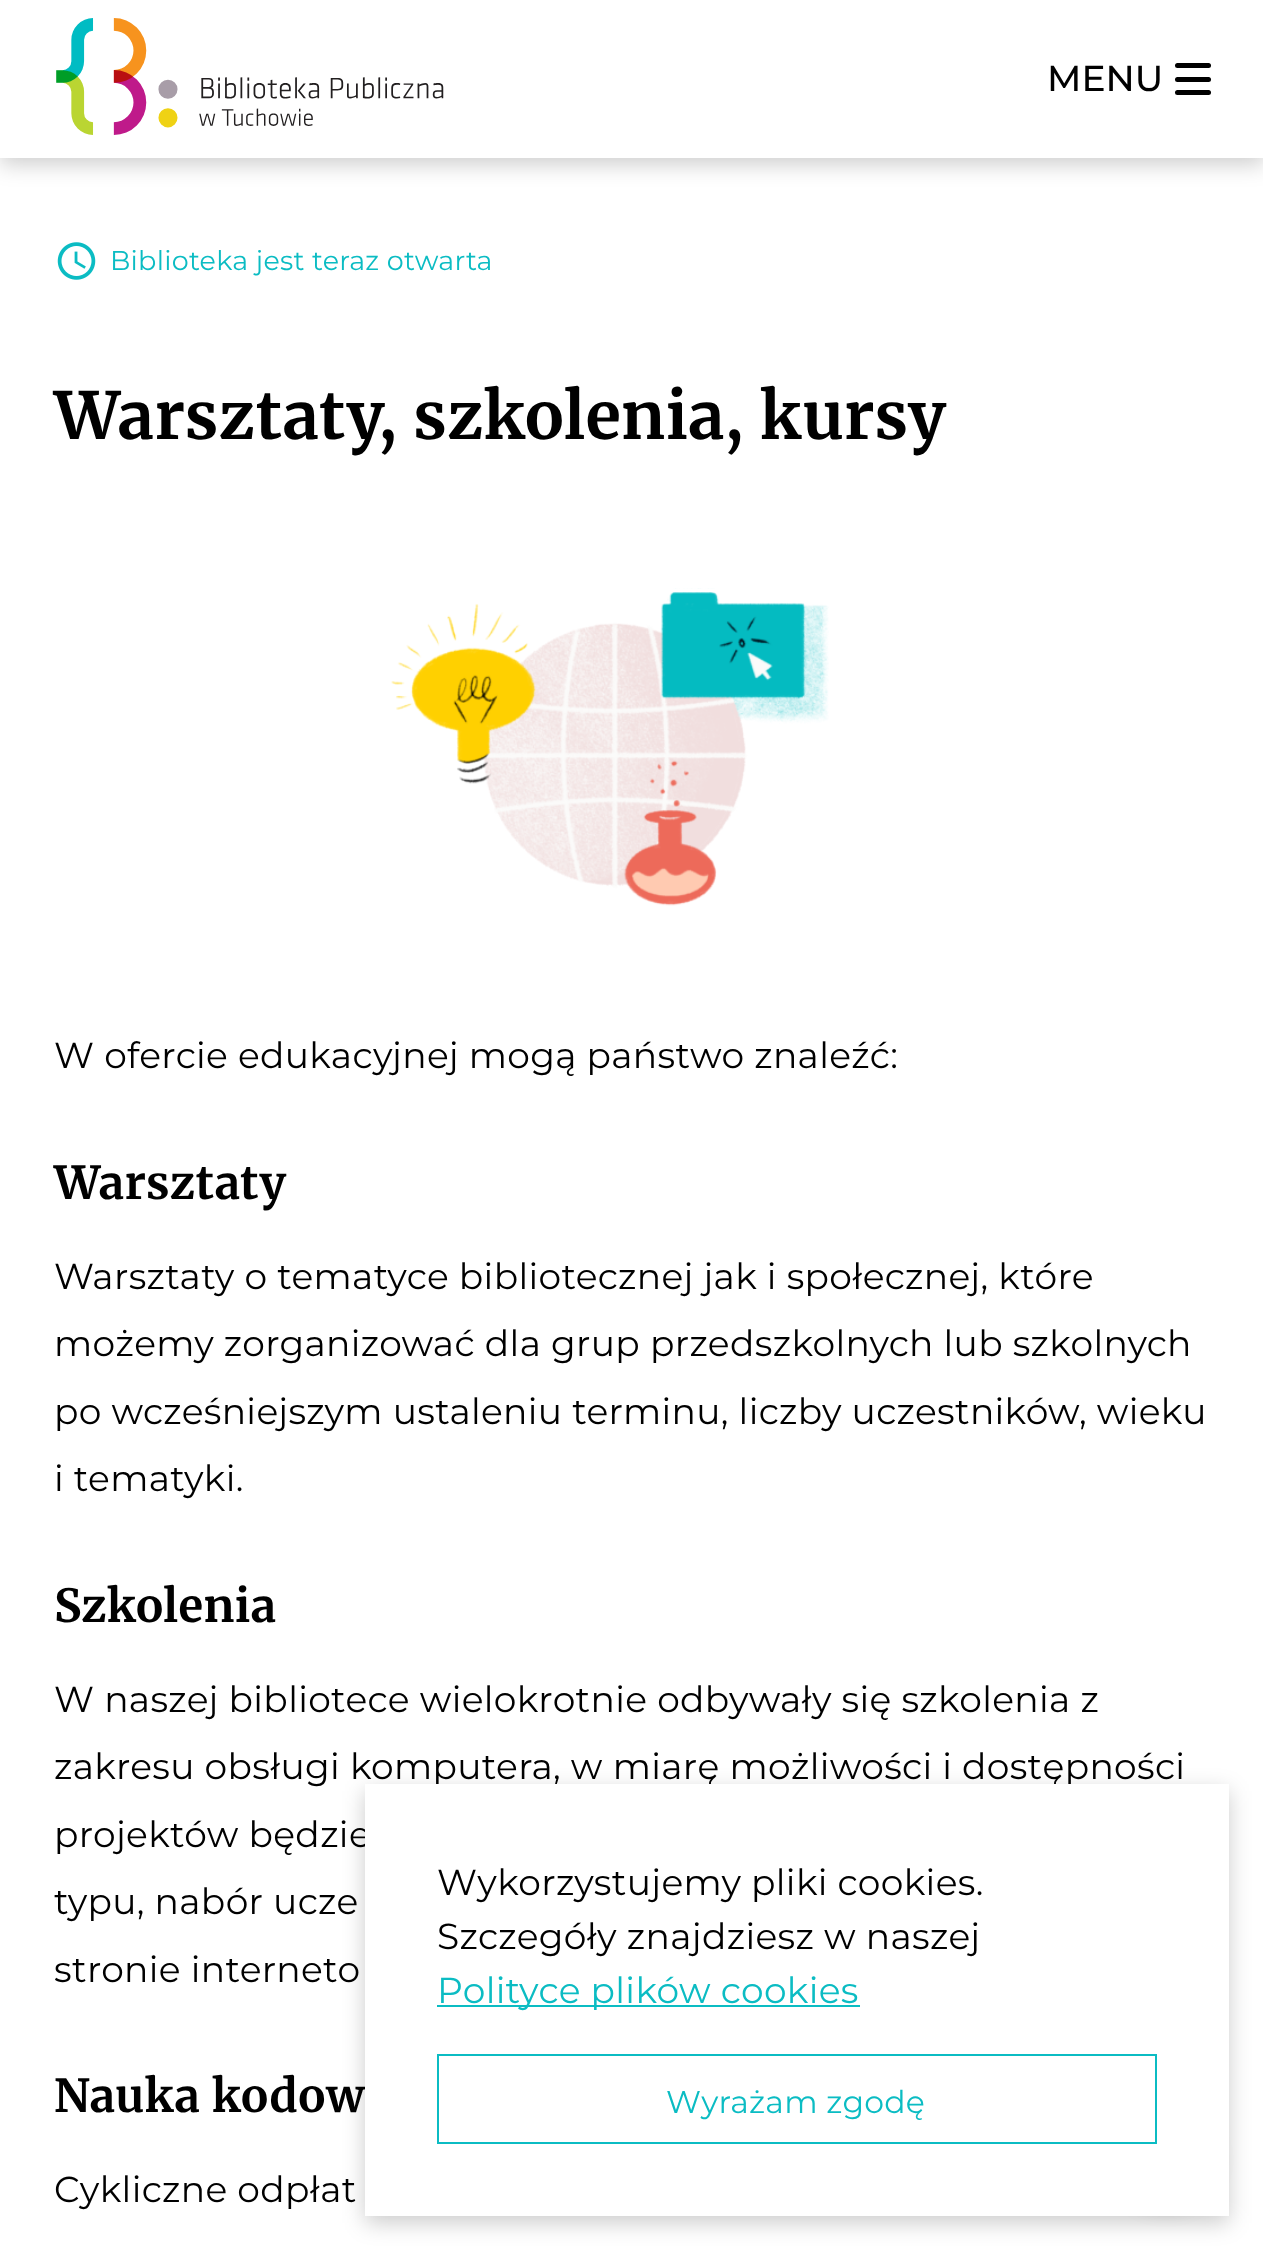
<svg xmlns="http://www.w3.org/2000/svg" width="1263" height="2252">
<style>
.a{font:500 36px Montserrat;fill:#000}
.b{font:27px Montserrat;letter-spacing:0.25px;fill:#0bbcc3}
.c{font:bold 64.9px Merriweather;letter-spacing:0.65px;fill:#000}
.d{font:36px Montserrat;letter-spacing:0.35px;fill:#000}
.e{font:bold 45.5px Merriweather;letter-spacing:0.5px;fill:#000}
.f{font:36px Montserrat;letter-spacing:0.35px;fill:#0bbcc3}
.g{font:31.5px Montserrat;letter-spacing:0.25px;fill:#0bbcc3}
</style>
<rect width="100%" height="100%" fill="#fff"/>
<path fill="#00000033" filter="blur(11px)" d="M0 7h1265v157H0z"/>
<path fill="#fff" d="M0 0h1263v158H0z"/>
<image href="1.png" x="56" y="18" width="388" height="117"/>
<rect fill="#000" x="1175" y="63" width="36" height="5" rx="2.5"/>
<rect fill="#000" x="1175" y="77" width="36" height="5" rx="2.5"/>
<rect fill="#000" x="1175" y="90" width="36" height="5" rx="2.5"/>
<image href="2.png" x="57" y="242" width="39" height="38"/>
<image href="3.png" x="391" y="588" width="438" height="318"/>
<path fill="#00000033" filter="blur(11px)" d="M365 1791h864v432H365z"/>
<rect fill="#00000033" filter="blur(11px)" x="1121" y="2115" width="90" height="90" rx="45"/>
<text class="a" x="1047" y="91">MENU</text>
<text class="b" x="110" y="270">Biblioteka jest teraz otwarta</text>
<text class="c" x="54" y="439">Warsztaty, szkolenia, kursy</text>
<text class="d" x="54" y="1068">W ofercie edukacyjnej mogą państwo znaleźć:</text>
<text class="e" x="54" y="1199">Warsztaty</text>
<text class="d" x="54" y="1289">Warsztaty o tematyce bibliotecznej jak i społecznej, które</text>
<text class="d" x="54" y="1356">możemy zorganizować dla grup przedszkolnych lub szkolnych</text>
<text class="d" x="54" y="1424">po wcześniejszym ustaleniu terminu, liczby uczestników, wieku</text>
<text class="d" x="54" y="1491">i tematyki.</text>
<text class="e" x="54" y="1622">Szkolenia</text>
<text class="d" x="54" y="1712">W naszej bibliotece wielokrotnie odbywały się szkolenia z</text>
<text class="d" x="54" y="1779">zakresu obsługi komputera, w miarę możliwości i dostępności</text>
<text class="d" x="54" y="1847">projektów będzie</text>
<text class="d" x="54" y="1914">typu, nabór ucze</text>
<text class="d" x="54" y="1982">stronie interneto</text>
<text class="e" x="54" y="2112">Nauka kodow</text>
<text class="d" x="54" y="2202">Cykliczne odpłat</text>
<path fill="#fff" d="M365 1784h864v432H365z"/>
<text class="d" x="437" y="1895">Wykorzystujemy pliki cookies.</text>
<text class="d" x="437" y="1949">Szczegóły znajdziesz w naszej</text>
<path fill="#0bbcc3" d="M437 2005h423v2H437z"/>
<text class="f" x="437" y="2003">Polityce plików cookies</text>
<path fill="none" stroke="#0bbcc3" stroke-width="2" d="M438 2055h718v88H438z"/>
<text class="g" x="666" y="2113">Wyrażam zgodę</text>
</svg>
